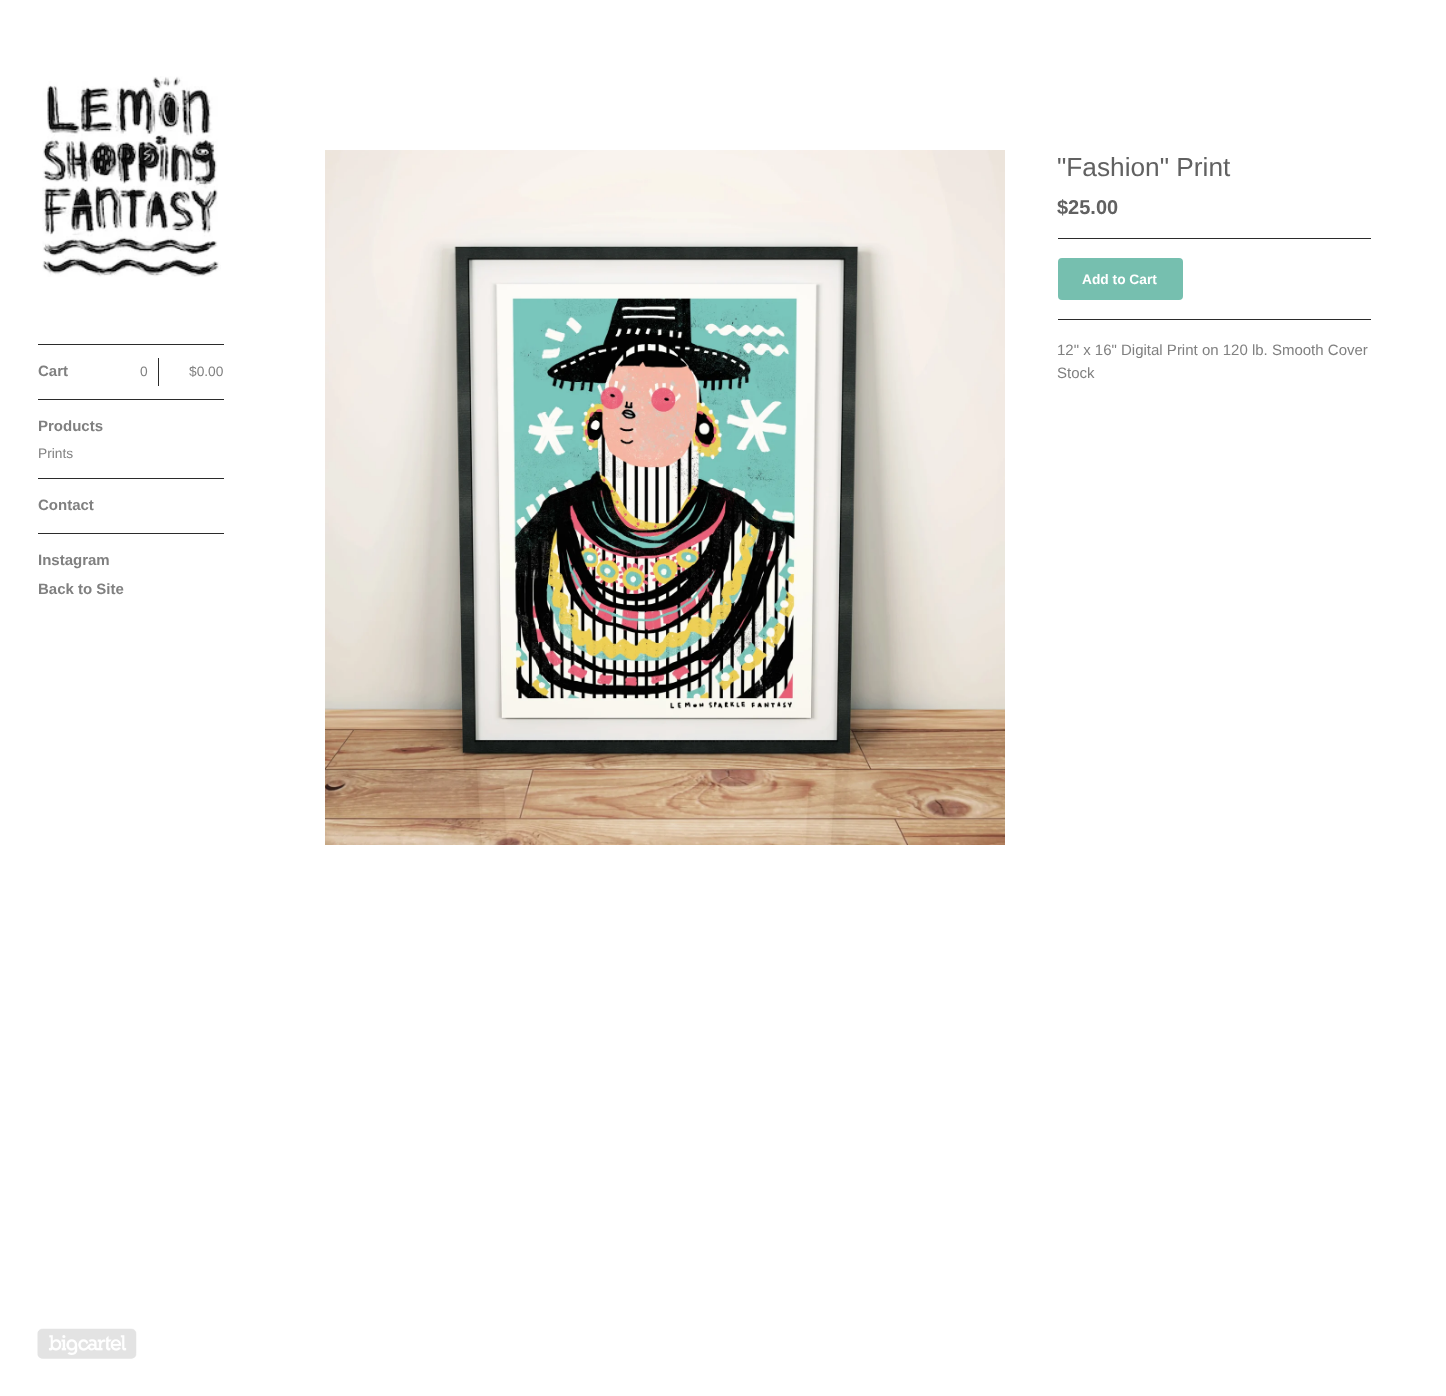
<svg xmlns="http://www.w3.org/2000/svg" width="1446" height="1396">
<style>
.a{font:26.25px Liberation Sans;fill:#616161}
.b{font:bold 20px Liberation Sans;fill:#616161}
.c{font:bold 13.75px Liberation Sans;fill:#fff}
.d{font:15px Liberation Sans;fill:#808080}
.e{font:bold 15px Liberation Sans;fill:#808080}
.f{font:13.75px Liberation Sans;fill:#808080}
</style>
<rect width="100%" height="100%" fill="#fff"/>
<image href="1.png" x="325" y="150" width="680" height="695"/>
<path fill="#2b2b2b" d="M1058 238h313v1H1058z"/>
<rect fill="#76bfaf" x="1058" y="258" width="125" height="42" rx="4"/>
<path fill="#2b2b2b" d="M1058 319h313v1H1058z"/>
<image href="2.png" x="42" y="76" width="179" height="201"/>
<path fill="#2b2b2b" d="M38 344h186v1H38z"/>
<path fill="#2b2b2b" d="M158 358h1v28H158z"/>
<path fill="#2b2b2b" d="M38 399h186v1H38z"/>
<path fill="#2b2b2b" d="M38 478h186v1H38z"/>
<path fill="#2b2b2b" d="M38 533h186v1H38z"/>
<image href="3.png" x="37" y="1328" width="100" height="31"/>
<text class="a" x="1057" y="176">"Fashion" Print</text>
<text class="b" x="1057" y="214">$25.00</text>
<text class="c" x="1082" y="284">Add to Cart</text>
<text class="d" x="1057" y="355">12" x 16" Digital Print on 120 lb. Smooth Cover</text>
<text class="d" x="1057" y="378">Stock</text>
<text class="e" x="38" y="376">Cart</text>
<text class="f" x="140" y="376">0</text>
<text class="f" x="189" y="376">$0.00</text>
<text class="e" x="38" y="431">Products</text>
<text class="f" x="38" y="458">Prints</text>
<text class="e" x="38" y="510">Contact</text>
<text class="e" x="38" y="565">Instagram</text>
<text class="e" x="38" y="594">Back to Site</text>
</svg>
